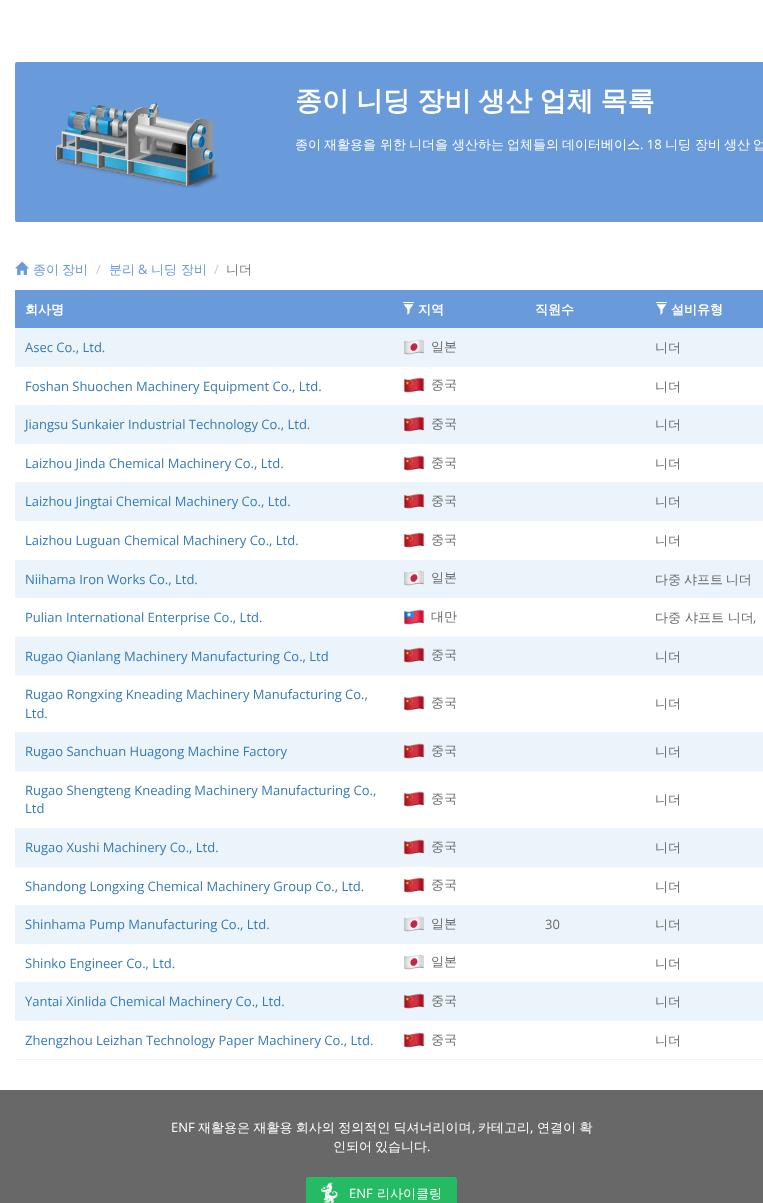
<svg xmlns="http://www.w3.org/2000/svg" width="763" height="1203">
<style>
.a{font:bold 27px WenQuanYi Zen Hei;fill:#fff}
.b{font:500 13px WenQuanYi Zen Hei;fill:#fff}
.c{font:13px Open Sans;fill:#fff}
.d{font:500 13px WenQuanYi Zen Hei;fill:#699ada}
.e{font:13px Open Sans;fill:#ccc}
.f{font:13px Open Sans;fill:#699ada}
.g{font:500 13px WenQuanYi Zen Hei;fill:#777}
.h{font:bold 13px WenQuanYi Zen Hei;fill:#fff}
.i{font:13px Open Sans;fill:#337ab7}
.j{font:500 13px WenQuanYi Zen Hei;fill:#686868}
.k{font:13px Open Sans;fill:#686868}
</style>
<rect width="100%" height="100%" fill="#fff"/>
<rect fill="#699ada" x="15" y="62" width="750" height="160" rx="2"/>
<image href="1.png" x="55" y="103" width="164" height="85"/>
<image href="2.png" x="15" y="261" width="14" height="14"/>
<path fill="#ebf4fa" d="M15 1059h748v1H15z"/>
<path fill="#699ada" d="M15 290h748v38H15z"/>
<image href="3.png" x="403" y="302" width="11" height="13"/>
<image href="3.png" x="656" y="302" width="11" height="13"/>
<path fill="#ebf4fa" d="M15 328h748v39H15z"/>
<image href="4.png" x="404" y="339" width="20" height="16"/>
<image href="5.png" x="403" y="377" width="22" height="16"/>
<path fill="#ebf4fa" d="M15 405h748v39H15z"/>
<image href="6.png" x="403" y="416" width="22" height="16"/>
<image href="5.png" x="403" y="455" width="22" height="16"/>
<path fill="#ebf4fa" d="M15 482h748v39H15z"/>
<image href="6.png" x="403" y="493" width="22" height="16"/>
<image href="5.png" x="403" y="532" width="22" height="16"/>
<path fill="#ebf4fa" d="M15 560h748v38H15z"/>
<image href="4.png" x="404" y="570" width="20" height="16"/>
<image href="7.png" x="403" y="609" width="22" height="16"/>
<path fill="#ebf4fa" d="M15 637h748v38H15z"/>
<image href="6.png" x="403" y="647" width="22" height="16"/>
<image href="5.png" x="403" y="695" width="22" height="16"/>
<path fill="#ebf4fa" d="M15 732h748v39H15z"/>
<image href="6.png" x="403" y="743" width="22" height="16"/>
<image href="5.png" x="403" y="791" width="22" height="16"/>
<path fill="#ebf4fa" d="M15 828h748v39H15z"/>
<image href="6.png" x="403" y="839" width="22" height="16"/>
<image href="5.png" x="403" y="877" width="22" height="16"/>
<path fill="#ebf4fa" d="M15 905h748v39H15z"/>
<image href="4.png" x="404" y="916" width="20" height="16"/>
<image href="8.png" x="404" y="954" width="20" height="16"/>
<path fill="#ebf4fa" d="M15 982h748v39H15z"/>
<image href="6.png" x="403" y="993" width="22" height="16"/>
<image href="5.png" x="403" y="1032" width="22" height="16"/>
<path fill="#686868" d="M0 1090h763v113H0z"/>
<rect fill="#25ba64" x="306" y="1177" width="151" height="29" rx="2.5"/>
<image href="9.png" x="321" y="1182" width="18" height="21"/>
<text class="a" x="295" y="110" word-spacing="-1">종이 니딩 장비 생산 업체 목록</text>
<text class="b" x="295" y="149">종이</text>
<text class="b" x="324" y="149">재활용을</text>
<text class="b" x="380" y="149">위한</text>
<text class="b" x="409" y="149">니더을</text>
<text class="b" x="452" y="149">생산하는</text>
<text class="b" x="507" y="149">업체들의</text>
<text class="b" x="562" y="149">데이터베이스</text>
<text class="c" x="640" y="149">. 18</text>
<text class="b" x="665" y="149">니딩</text>
<text class="b" x="695" y="149">장비</text>
<text class="b" x="724" y="149">생산</text>
<text class="b" x="753" y="149">업</text>
<text class="d" x="33" y="274" word-spacing="-1">종이 장비</text>
<text class="e" x="96" y="274">/</text>
<text class="d" x="109" y="274">분리</text>
<text class="f" x="138" y="274">&amp;</text>
<text class="d" x="151" y="274">니딩 장비</text>
<text class="e" x="214" y="274">/</text>
<text class="g" x="226" y="274">니더</text>
<text class="h" x="25" y="314">회사명</text>
<text class="h" x="418" y="314">지역</text>
<text class="h" x="535" y="314">직원수</text>
<text class="h" x="671" y="314">설비유형</text>
<text class="i" x="25" y="352">Asec Co., Ltd.</text>
<text class="j" x="431" y="351">일본</text>
<text class="j" x="655" y="352">니더</text>
<text class="i" x="25" y="391">Foshan Shuochen Machinery Equipment Co., Ltd.</text>
<text class="j" x="431" y="389">중국</text>
<text class="j" x="655" y="391">니더</text>
<text class="i" x="25" y="429">Jiangsu Sunkaier Industrial Technology Co., Ltd.</text>
<text class="j" x="431" y="428">중국</text>
<text class="j" x="655" y="429">니더</text>
<text class="i" x="25" y="468">Laizhou Jinda Chemical Machinery Co., Ltd.</text>
<text class="j" x="431" y="467">중국</text>
<text class="j" x="655" y="468">니더</text>
<text class="i" x="25" y="506">Laizhou Jingtai Chemical Machinery Co., Ltd.</text>
<text class="j" x="431" y="505">중국</text>
<text class="j" x="655" y="506">니더</text>
<text class="i" x="25" y="545">Laizhou Luguan Chemical Machinery Co., Ltd.</text>
<text class="j" x="431" y="544">중국</text>
<text class="j" x="655" y="545">니더</text>
<text class="i" x="25" y="584">Niihama Iron Works Co., Ltd.</text>
<text class="j" x="431" y="582">일본</text>
<text class="j" x="655" y="584" word-spacing="-1">다중 샤프트 니더</text>
<text class="i" x="25" y="622">Pulian International Enterprise Co., Ltd.</text>
<text class="j" x="431" y="621">대만</text>
<text class="j" x="655" y="622">다중 샤프트 니더</text>
<text class="k" x="753" y="622">,</text>
<text class="i" x="25" y="661">Rugao Qianlang Machinery Manufacturing Co., Ltd</text>
<text class="j" x="431" y="659">중국</text>
<text class="j" x="655" y="661">니더</text>
<text class="i" x="25" y="699">Rugao Rongxing Kneading Machinery Manufacturing Co.,</text>
<text class="i" x="25" y="718">Ltd.</text>
<text class="j" x="431" y="707">중국</text>
<text class="j" x="655" y="708">니더</text>
<text class="i" x="25" y="756">Rugao Sanchuan Huagong Machine Factory</text>
<text class="j" x="431" y="755">중국</text>
<text class="j" x="655" y="756">니더</text>
<text class="i" x="25" y="795">Rugao Shengteng Kneading Machinery Manufacturing Co.,</text>
<text class="i" x="25" y="813">Ltd</text>
<text class="j" x="431" y="803">중국</text>
<text class="j" x="655" y="804">니더</text>
<text class="i" x="25" y="852">Rugao Xushi Machinery Co., Ltd.</text>
<text class="j" x="431" y="851">중국</text>
<text class="j" x="655" y="852">니더</text>
<text class="i" x="25" y="891">Shandong Longxing Chemical Machinery Group Co., Ltd.</text>
<text class="j" x="431" y="889">중국</text>
<text class="j" x="655" y="891">니더</text>
<text class="i" x="25" y="929">Shinhama Pump Manufacturing Co., Ltd.</text>
<text class="j" x="431" y="928">일본</text>
<text class="k" x="545" y="929">30</text>
<text class="j" x="655" y="929">니더</text>
<text class="i" x="25" y="968">Shinko Engineer Co., Ltd.</text>
<text class="j" x="431" y="966">일본</text>
<text class="j" x="655" y="968">니더</text>
<text class="i" x="25" y="1006">Yantai Xinlida Chemical Machinery Co., Ltd.</text>
<text class="j" x="431" y="1005">중국</text>
<text class="j" x="655" y="1006">니더</text>
<text class="i" x="25" y="1045">Zhengzhou Leizhan Technology Paper Machinery Co., Ltd.</text>
<text class="j" x="431" y="1044">중국</text>
<text class="j" x="655" y="1045">니더</text>
<text class="c" x="171" y="1132">ENF</text>
<text class="b" x="198" y="1132" word-spacing="-0.5">재활용은 재활용 회사의 정의적인 딕셔너리이며</text>
<text class="c" x="472" y="1132">,</text>
<text class="b" x="478" y="1132">카테고리</text>
<text class="c" x="530" y="1132">,</text>
<text class="b" x="537" y="1132" word-spacing="-0.5">연결이 확</text>
<text class="b" x="333" y="1151" word-spacing="-1">인되어 있습니다</text>
<text class="c" x="427" y="1151">.</text>
<text class="c" x="349" y="1198">ENF</text>
<text class="b" x="377" y="1198">리사이클링</text>
</svg>
